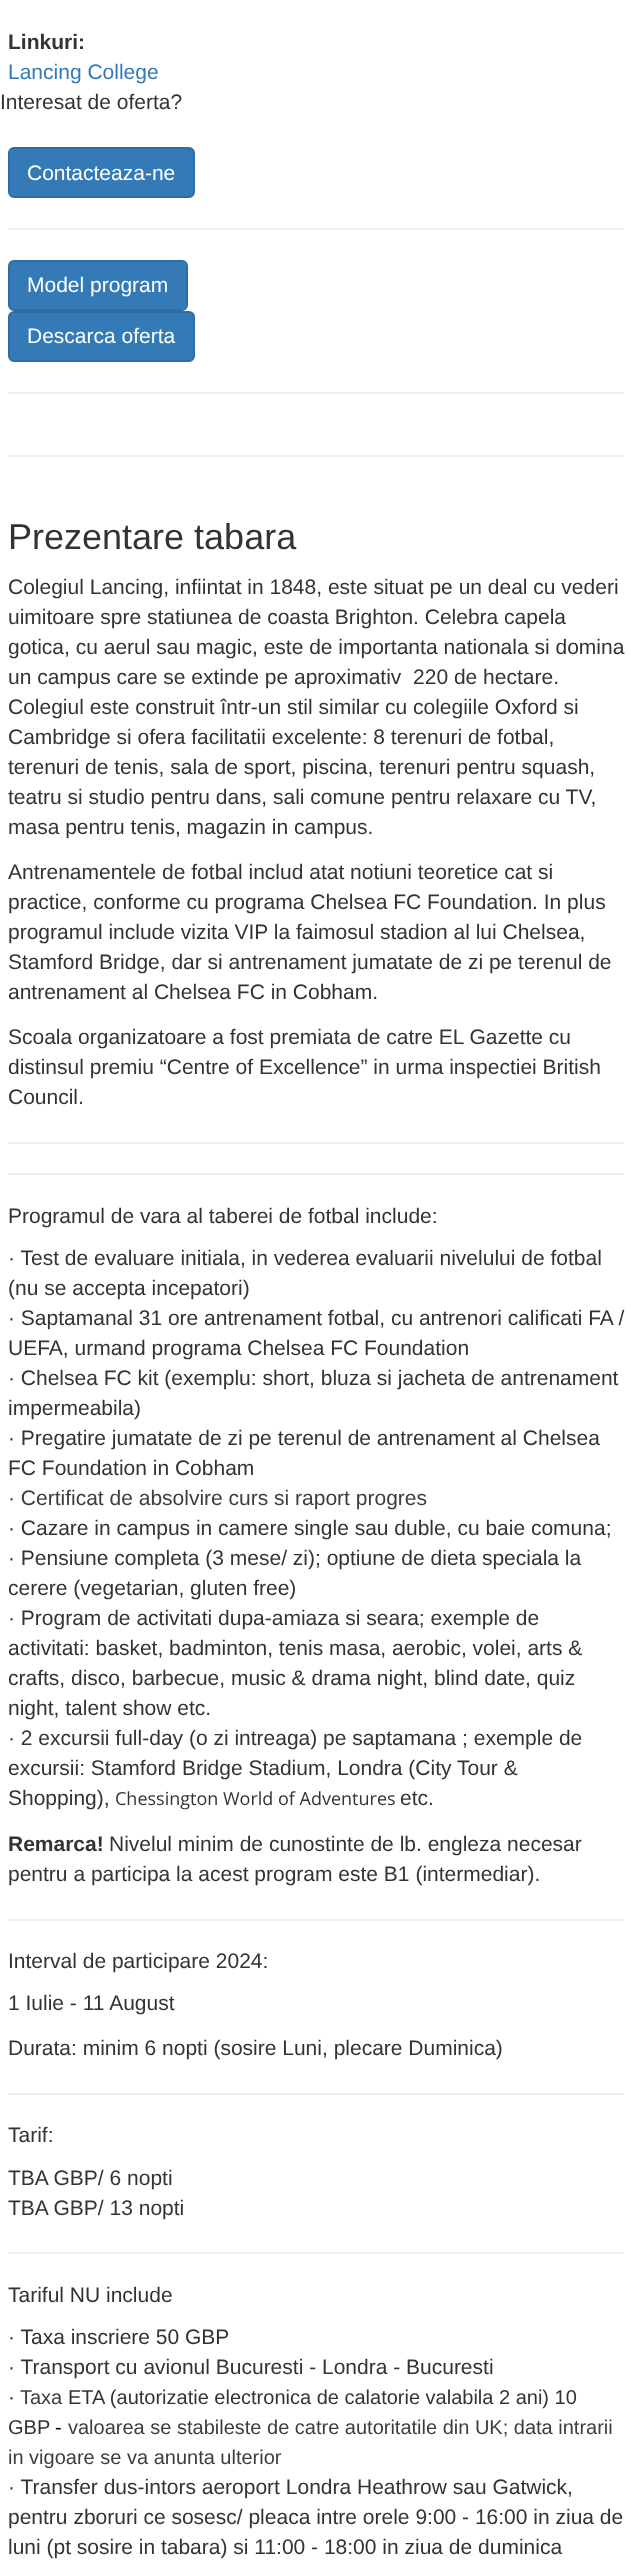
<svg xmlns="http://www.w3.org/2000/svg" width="631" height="2567">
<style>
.a{font:bold 21px Liberation Sans;fill:#333}
.b{font:21px Liberation Sans;fill:#337ab7}
.c{font:21px Liberation Sans;fill:#333}
.d{font:21px Liberation Sans;fill:#fff}
.e{font:36px Liberation Sans;fill:#333}
.f{font:21px Liberation Sans;fill:#383f42}
.g{font:18px Open Sans;fill:#333}
.h{font:20px Liberation Sans;fill:#383f42}
.i{font:20px Liberation Sans;fill:#333}
.j{font:20px Liberation Sans;fill:#000}
</style>
<rect width="100%" height="100%" fill="#fff"/>
<rect fill="#337ab7" stroke="#2e6da4" stroke-width="2" x="9" y="148" width="185" height="49" rx="5"/>
<path fill="#eee" d="M8 228h616v2H8z"/>
<rect fill="#337ab7" stroke="#2e6da4" stroke-width="2" x="9" y="261" width="178" height="49" rx="5"/>
<rect fill="#337ab7" stroke="#2e6da4" stroke-width="2" x="9" y="312" width="185" height="49" rx="5"/>
<path fill="#eee" d="M8 392h616v2H8z"/>
<path fill="#eee" d="M8 455h616v2H8z"/>
<path fill="#eee" d="M8 1142h616v2H8z"/>
<path fill="#eee" d="M8 1173h616v2H8z"/>
<path fill="#eee" d="M8 1919h616v2H8z"/>
<path fill="#eee" d="M8 2093h616v2H8z"/>
<path fill="#eee" d="M8 2252h616v2H8z"/>
<text class="a" x="8" y="49">Linkuri:</text>
<text class="b" x="8" y="79">Lancing College</text>
<text class="c" x="0" y="109">Interesat de oferta?</text>
<text class="d" x="27" y="180">Contacteaza-ne</text>
<text class="d" x="27" y="292">Model program</text>
<text class="d" x="27" y="343">Descarca oferta</text>
<text class="e" x="8" y="549">Prezentare tabara</text>
<text class="c" x="8" y="594">Colegiul Lancing, infiintat in 1848, este situat pe un deal cu vederi</text>
<text class="c" x="8" y="624">uimitoare spre statiunea de coasta Brighton. Celebra capela</text>
<text class="c" x="8" y="654">gotica, cu aerul sau magic, este de importanta nationala si domina</text>
<text class="c" xml:space="preserve" x="8" y="684">un campus care se extinde pe aproximativ  220 de hectare.</text>
<text class="c" x="8" y="714">Colegiul este construit într-un stil similar cu colegiile Oxford si</text>
<text class="c" x="8" y="744">Cambridge si ofera facilitatii excelente: 8 terenuri de fotbal,</text>
<text class="c" x="8" y="774">terenuri de tenis, sala de sport, piscina, terenuri pentru squash,</text>
<text class="c" x="8" y="804">teatru si studio pentru dans, sali comune pentru relaxare cu TV,</text>
<text class="c" x="8" y="834">masa pentru tenis, magazin in campus.</text>
<text class="c" x="8" y="879">Antrenamentele de fotbal includ atat notiuni teoretice cat si</text>
<text class="c" x="8" y="909">practice, conforme cu programa Chelsea FC Foundation. In plus</text>
<text class="c" x="8" y="939">programul include vizita VIP la faimosul stadion al lui Chelsea,</text>
<text class="c" x="8" y="969">Stamford Bridge, dar si antrenament jumatate de zi pe terenul de</text>
<text class="c" x="8" y="999">antrenament al Chelsea FC in Cobham.</text>
<text class="c" x="8" y="1044">Scoala organizatoare a fost premiata de catre EL Gazette cu</text>
<text class="c" x="8" y="1074">distinsul premiu “Centre of Excellence” in urma inspectiei British</text>
<text class="c" x="8" y="1104">Council.</text>
<text class="c" x="8" y="1223">Programul de vara al taberei de fotbal include:</text>
<text class="c" x="8" y="1265">· Test de evaluare initiala, in vederea evaluarii nivelului de fotbal</text>
<text class="c" x="8" y="1295">(nu se accepta incepatori)</text>
<text class="c" x="8" y="1325">· Saptamanal 31 ore antrenament fotbal, cu antrenori calificati FA /</text>
<text class="c" x="8" y="1355">UEFA, urmand programa Chelsea FC Foundation</text>
<text class="c" x="8" y="1385">· Chelsea FC kit (exemplu: short, bluza si jacheta de antrenament</text>
<text class="c" x="8" y="1415">impermeabila)</text>
<text class="c" x="8" y="1445">· Pregatire jumatate de zi pe terenul de antrenament al Chelsea</text>
<text class="c" x="8" y="1475">FC Foundation in Cobham</text>
<text class="f" x="8" y="1505">· Certificat de absolvire curs si raport progres</text>
<text class="c" x="8" y="1535">· Cazare in campus in camere single sau duble, cu baie comuna;</text>
<text class="c" x="8" y="1565">· Pensiune completa (3 mese/ zi); optiune de dieta speciala la</text>
<text class="c" x="8" y="1595">cerere (vegetarian, gluten free)</text>
<text class="c" x="8" y="1625">· Program de activitati dupa-amiaza si seara; exemple de</text>
<text class="c" x="8" y="1655">activitati: basket, badminton, tenis masa, aerobic, volei, arts &amp;</text>
<text class="c" x="8" y="1685">crafts, disco, barbecue, music &amp; drama night, blind date, quiz</text>
<text class="c" x="8" y="1715">night, talent show etc.</text>
<text class="c" x="8" y="1745">· 2 excursii full-day (o zi intreaga) pe saptamana ; exemple de</text>
<text class="c" x="8" y="1775">excursii: Stamford Bridge Stadium, Londra (City Tour &amp;</text>
<text class="c" x="8" y="1805">Shopping),</text>
<text class="g" x="115" y="1805">Chessington World of Adventures</text>
<text class="c" x="400" y="1805">etc.</text>
<text class="a" x="8" y="1851">Remarca!</text>
<text class="c" x="109" y="1851">Nivelul minim de cunostinte de lb. engleza necesar</text>
<text class="c" x="8" y="1881">pentru a participa la acest program este B1 (intermediar).</text>
<text class="c" x="8" y="1968">Interval de participare 2024:</text>
<text class="c" x="8" y="2010">1 Iulie - 11 August</text>
<text class="c" x="8" y="2055">Durata: minim 6 nopti (sosire Luni, plecare Duminica)</text>
<text class="c" x="8" y="2142">Tarif:</text>
<text class="c" x="8" y="2185">TBA GBP/ 6 nopti</text>
<text class="c" x="8" y="2215">TBA GBP/ 13 nopti</text>
<text class="c" x="8" y="2302">Tariful NU include</text>
<text class="c" x="8" y="2344">· Taxa inscriere 50 GBP</text>
<text class="c" x="8" y="2374">· Transport cu avionul Bucuresti - Londra - Bucuresti</text>
<text class="c" x="8" y="2404">·</text>
<text class="h" x="20" y="2404">Taxa</text>
<text class="i" x="68" y="2404">ETA (autorizatie electronica de calatorie valabila 2 ani) 10</text>
<text class="i" x="8" y="2434">GBP</text>
<text class="j" x="55" y="2434">-</text>
<text class="h" x="68" y="2434">valoarea se stabileste de catre autoritatile din UK; data intrarii</text>
<text class="h" x="8" y="2464">in vigoare se va anunta ulterior</text>
<text class="c" x="8" y="2494">· Transfer dus-intors aeroport Londra Heathrow sau Gatwick,</text>
<text class="c" x="8" y="2524">pentru zboruri ce sosesc/ pleaca intre orele 9:00 - 16:00 in ziua de</text>
<text class="c" x="8" y="2554">luni (pt sosire in tabara) si 11:00 - 18:00 in ziua de duminica</text>
</svg>
